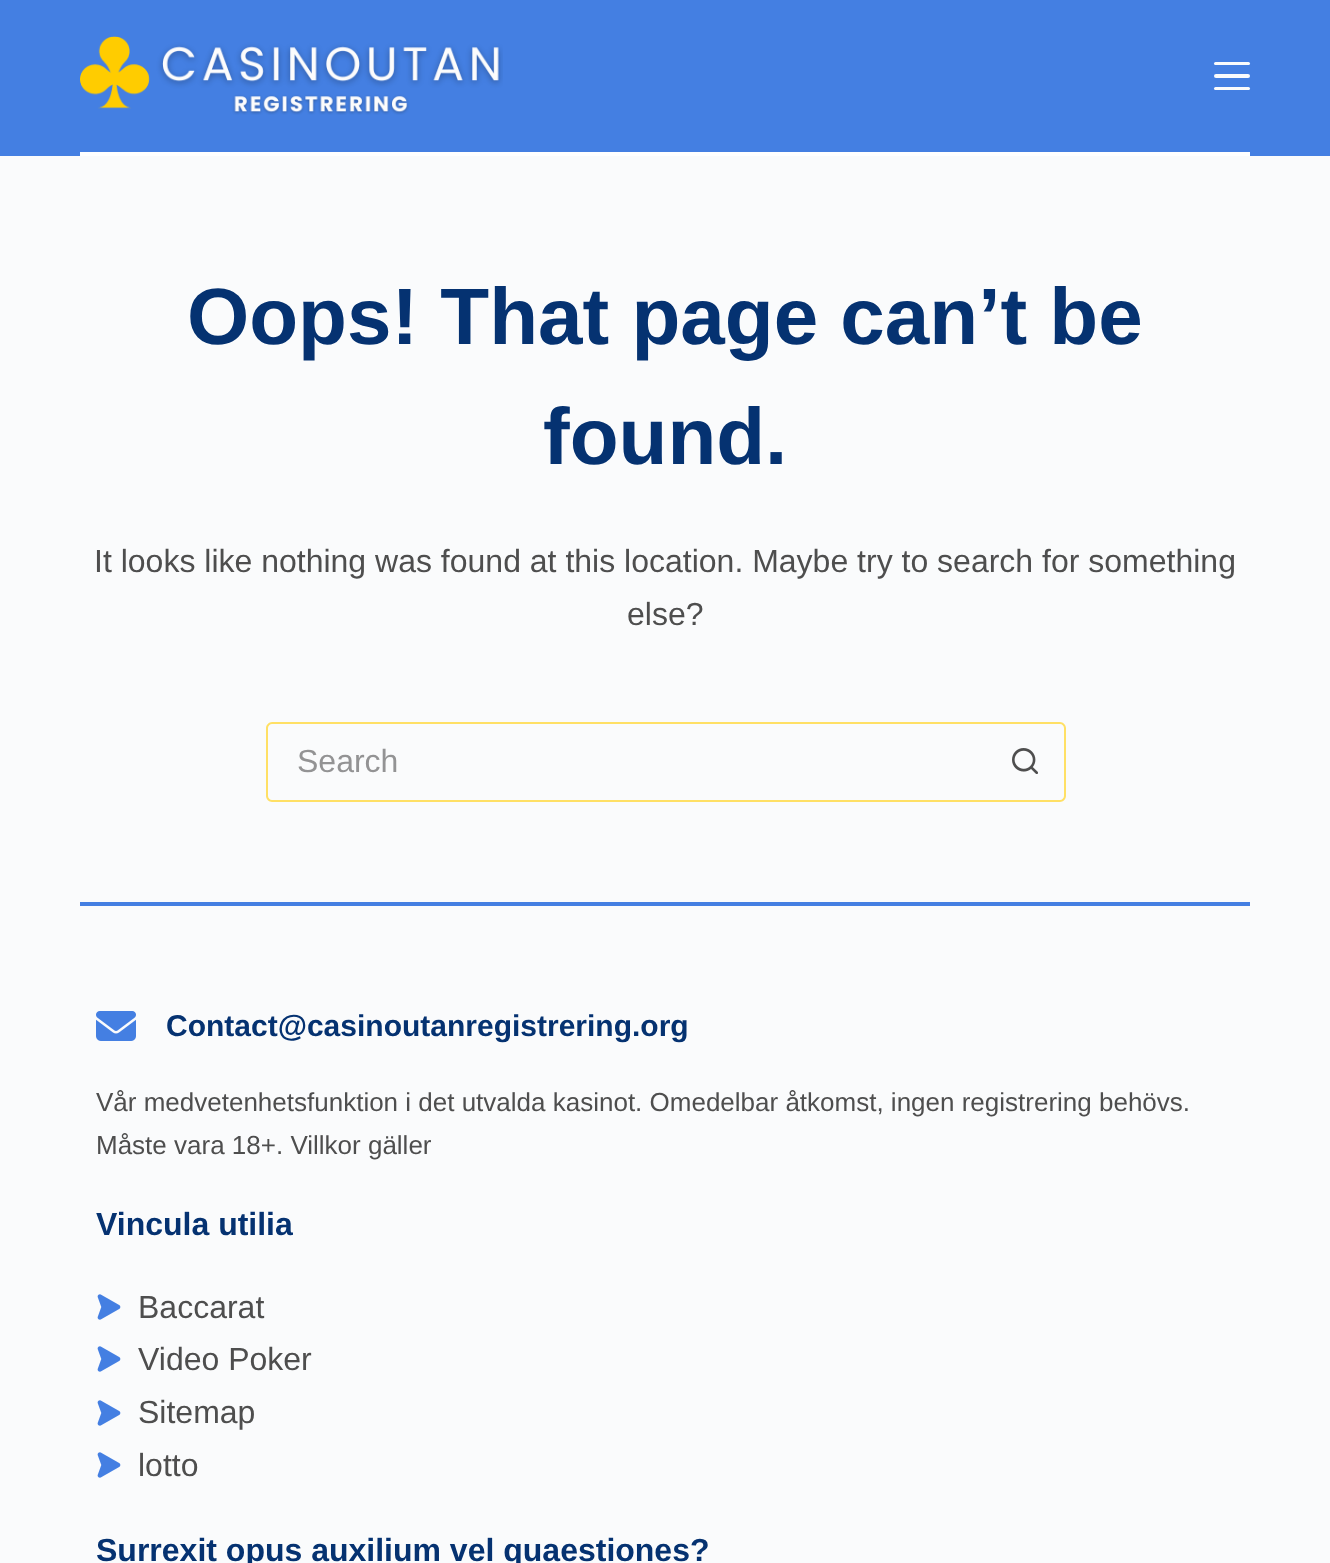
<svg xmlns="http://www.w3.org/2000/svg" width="1330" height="1563">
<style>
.a{font:bold 80px Liberation Sans;fill:#053271}
.b{font:32px Liberation Sans;fill:#4e4e4e}
.c{font:32px Liberation Sans;fill:#939394}
.d{font:bold 30px Liberation Sans;fill:#053271}
.e{font:26px Liberation Sans;fill:#4e4e4e}
.f{font:bold 32px Liberation Sans;fill:#053271}
</style>
<rect width="100%" height="100%" fill="#fafbfc"/>
<path fill="#447fe2" d="M0 0h1330v156H0z"/>
<path fill="#fff" d="M80 152h1170v4H80z"/>
<image href="1.png" x="80" y="36" width="423" height="79"/>
<rect fill="#fafbfc" x="1214" y="62" width="36" height="3" rx="1.5"/>
<rect fill="#fafbfc" x="1214" y="74" width="36" height="4" rx="2"/>
<rect fill="#fafbfc" x="1214" y="87" width="36" height="3" rx="1.5"/>
<path fill="#ffe065" fill-rule="evenodd" d="M272 722h714v80h-714c-3 0-6-3-6-6v-68c0-3 3-6 6-6zm0 2h714v76h-714c-2 0-4-2-4-4v-68c0-2 2-4 4-4z"/>
<path fill="#ffe065" fill-rule="evenodd" d="M986 722h74c3 0 6 3 6 6v68c0 3-3 6-6 6h-74zm0 2h74c2 0 4 2 4 4v68c0 2-2 4-4 4h-74z"/>
<image href="2.png" x="1012" y="748" width="26" height="26"/>
<path fill="#447fe2" d="M80 902h1170v4H80z"/>
<image href="3.png" x="96" y="1011" width="40" height="30"/>
<image href="4.png" x="97" y="1294" width="24" height="26"/>
<image href="4.png" x="97" y="1346" width="24" height="26"/>
<image href="4.png" x="97" y="1400" width="24" height="26"/>
<image href="4.png" x="97" y="1452" width="24" height="26"/>
<text class="a" x="187" y="344">Oops! That page can’t be</text>
<text class="a" x="543" y="464">found.</text>
<text class="b" x="94" y="572">It looks like nothing was found at this location. Maybe try to search for something</text>
<text class="b" x="627" y="625">else?</text>
<text class="c" x="297" y="772">Search</text>
<text class="d" x="166" y="1036">Contact@casinoutanregistrering.org</text>
<text class="e" x="96" y="1111">Vår medvetenhetsfunktion i det utvalda kasinot. Omedelbar åtkomst, ingen registrering behövs.</text>
<text class="e" x="96" y="1154">Måste vara 18+. Villkor gäller</text>
<text class="f" x="96" y="1235">Vincula utilia</text>
<text class="b" x="138" y="1318">Baccarat</text>
<text class="b" x="138" y="1370">Video Poker</text>
<text class="b" x="138" y="1423">Sitemap</text>
<text class="b" x="138" y="1476">lotto</text>
<text class="f" x="96" y="1561">Surrexit opus auxilium vel quaestiones?</text>
</svg>
